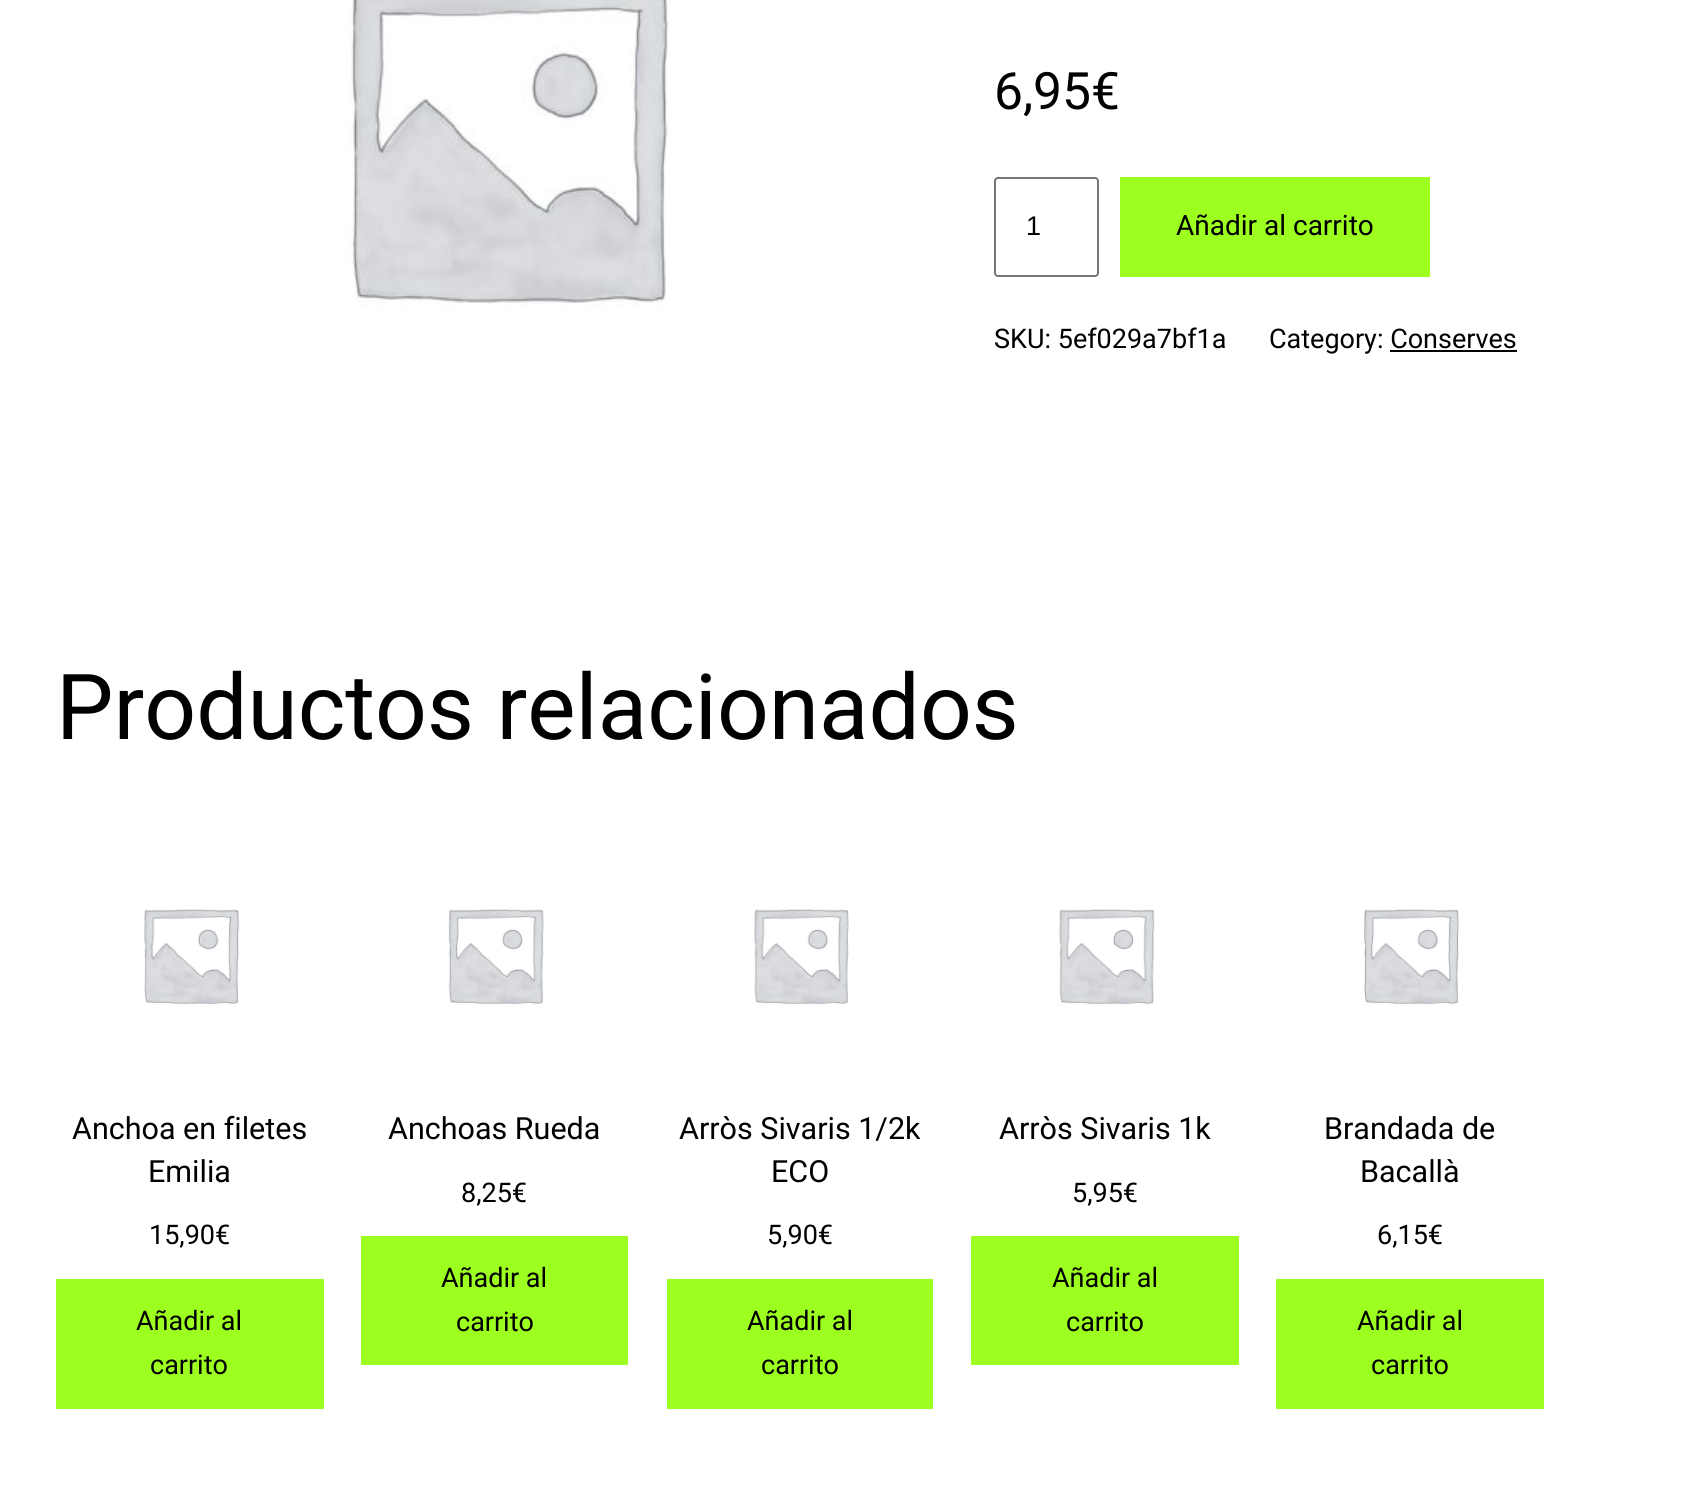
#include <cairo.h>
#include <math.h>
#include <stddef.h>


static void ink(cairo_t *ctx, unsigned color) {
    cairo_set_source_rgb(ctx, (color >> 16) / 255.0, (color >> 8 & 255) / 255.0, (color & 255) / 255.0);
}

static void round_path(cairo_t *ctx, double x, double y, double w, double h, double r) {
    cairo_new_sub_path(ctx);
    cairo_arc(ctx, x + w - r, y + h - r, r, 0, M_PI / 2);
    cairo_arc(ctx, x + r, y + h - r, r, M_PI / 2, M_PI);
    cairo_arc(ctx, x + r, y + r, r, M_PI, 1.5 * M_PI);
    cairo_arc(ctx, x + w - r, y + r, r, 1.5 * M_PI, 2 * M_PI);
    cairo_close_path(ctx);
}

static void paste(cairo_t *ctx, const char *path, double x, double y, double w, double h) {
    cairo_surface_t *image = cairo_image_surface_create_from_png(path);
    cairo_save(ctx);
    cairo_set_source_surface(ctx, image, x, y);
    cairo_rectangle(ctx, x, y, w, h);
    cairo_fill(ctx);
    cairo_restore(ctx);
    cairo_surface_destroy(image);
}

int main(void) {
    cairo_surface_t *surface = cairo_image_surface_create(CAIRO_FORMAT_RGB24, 1686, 1512);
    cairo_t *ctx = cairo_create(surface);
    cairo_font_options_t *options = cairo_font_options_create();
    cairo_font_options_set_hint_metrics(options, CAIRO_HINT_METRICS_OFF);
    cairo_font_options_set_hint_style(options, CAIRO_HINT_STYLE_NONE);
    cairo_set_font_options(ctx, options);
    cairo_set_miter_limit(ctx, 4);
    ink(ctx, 0xFFFFFF);
    cairo_paint(ctx);
    paste(ctx, "media/1.png", 347, 0, 324, 308);
    cairo_select_font_face(ctx, "Roboto", CAIRO_FONT_SLANT_NORMAL, CAIRO_FONT_WEIGHT_NORMAL);
    cairo_set_font_size(ctx, 51.5);
    ink(ctx, 0x000000);
    cairo_move_to(ctx, 994, 109);
    cairo_show_text(ctx, "6,95€");
    round_path(ctx, 995, 178, 103, 98, 3);
    ink(ctx, 0x767676);
    cairo_stroke(ctx);
    cairo_select_font_face(ctx, "Liberation Sans", CAIRO_FONT_SLANT_NORMAL, CAIRO_FONT_WEIGHT_NORMAL);
    cairo_set_font_size(ctx, 27);
    ink(ctx, 0x000000);
    cairo_move_to(ctx, 1026, 235);
    cairo_show_text(ctx, "1");
    ink(ctx, 0x9DFF20);
    cairo_rectangle(ctx, 1120, 177, 310, 100);
    cairo_fill(ctx);
    cairo_select_font_face(ctx, "Roboto", CAIRO_FONT_SLANT_NORMAL, CAIRO_FONT_WEIGHT_NORMAL);
    cairo_set_font_size(ctx, 28);
    ink(ctx, 0x000000);
    cairo_move_to(ctx, 1176, 235);
    cairo_show_text(ctx, "Añadir al carrito");
    cairo_set_font_size(ctx, 27);
    cairo_move_to(ctx, 994, 348);
    cairo_show_text(ctx, "SKU: 5ef029a7bf1a");
    cairo_move_to(ctx, 1269, 348);
    cairo_show_text(ctx, "Category: Conserves");
    cairo_rectangle(ctx, 1390, 350, 127, 2);
    cairo_fill(ctx);
    cairo_set_font_size(ctx, 91);
    cairo_move_to(ctx, 56, 739);
    cairo_show_text(ctx, "Productos relacionados");
    paste(ctx, "media/2.png", 144, 909, 95, 96);
    cairo_set_font_size(ctx, 30.5);
    cairo_move_to(ctx, 72, 1139);
    cairo_show_text(ctx, "Anchoa en filetes");
    cairo_move_to(ctx, 148, 1182);
    cairo_show_text(ctx, "Emilia");
    cairo_set_font_size(ctx, 27);
    cairo_move_to(ctx, 149, 1244);
    cairo_show_text(ctx, "15,90€");
    ink(ctx, 0x9DFF20);
    cairo_rectangle(ctx, 56, 1279, 268, 130);
    cairo_fill(ctx);
    ink(ctx, 0x000000);
    cairo_move_to(ctx, 136, 1330);
    cairo_show_text(ctx, "Añadir al");
    cairo_move_to(ctx, 150, 1374);
    cairo_show_text(ctx, "carrito");
    paste(ctx, "media/3.png", 448, 909, 96, 96);
    cairo_set_font_size(ctx, 30.5);
    cairo_move_to(ctx, 388, 1139);
    cairo_show_text(ctx, "Anchoas Rueda");
    cairo_set_font_size(ctx, 27);
    cairo_move_to(ctx, 461, 1202);
    cairo_show_text(ctx, "8,25€");
    ink(ctx, 0x9DFF20);
    cairo_rectangle(ctx, 361, 1236, 267, 129);
    cairo_fill(ctx);
    ink(ctx, 0x000000);
    cairo_move_to(ctx, 441, 1287);
    cairo_show_text(ctx, "Añadir al");
    cairo_move_to(ctx, 456, 1331);
    cairo_show_text(ctx, "carrito");
    paste(ctx, "media/4.png", 754, 909, 95, 96);
    cairo_set_font_size(ctx, 30.5);
    cairo_move_to(ctx, 679, 1139);
    cairo_show_text(ctx, "Arròs Sivaris 1/2k");
    cairo_move_to(ctx, 771, 1182);
    cairo_show_text(ctx, "ECO");
    cairo_set_font_size(ctx, 27);
    cairo_move_to(ctx, 767, 1244);
    cairo_show_text(ctx, "5,90€");
    ink(ctx, 0x9DFF20);
    cairo_rectangle(ctx, 667, 1279, 266, 130);
    cairo_fill(ctx);
    ink(ctx, 0x000000);
    cairo_move_to(ctx, 747, 1330);
    cairo_show_text(ctx, "Añadir al");
    cairo_move_to(ctx, 761, 1374);
    cairo_show_text(ctx, "carrito");
    paste(ctx, "media/5.png", 1059, 909, 96, 96);
    cairo_set_font_size(ctx, 30.5);
    cairo_move_to(ctx, 999, 1139);
    cairo_show_text(ctx, "Arròs Sivaris 1k");
    cairo_set_font_size(ctx, 27);
    cairo_move_to(ctx, 1072, 1202);
    cairo_show_text(ctx, "5,95€");
    ink(ctx, 0x9DFF20);
    cairo_rectangle(ctx, 971, 1236, 268, 129);
    cairo_fill(ctx);
    ink(ctx, 0x000000);
    cairo_move_to(ctx, 1052, 1287);
    cairo_show_text(ctx, "Añadir al");
    cairo_move_to(ctx, 1066, 1331);
    cairo_show_text(ctx, "carrito");
    paste(ctx, "media/6.png", 1364, 909, 95, 96);
    cairo_set_font_size(ctx, 30.5);
    cairo_move_to(ctx, 1324, 1139);
    cairo_show_text(ctx, "Brandada de");
    cairo_move_to(ctx, 1360, 1182);
    cairo_show_text(ctx, "Bacallà");
    cairo_set_font_size(ctx, 27);
    cairo_move_to(ctx, 1377, 1244);
    cairo_show_text(ctx, "6,15€");
    ink(ctx, 0x9DFF20);
    cairo_rectangle(ctx, 1276, 1279, 268, 130);
    cairo_fill(ctx);
    ink(ctx, 0x000000);
    cairo_move_to(ctx, 1357, 1330);
    cairo_show_text(ctx, "Añadir al");
    cairo_move_to(ctx, 1371, 1374);
    cairo_show_text(ctx, "carrito");
    cairo_surface_write_to_png(surface, "image.png");
    cairo_font_options_destroy(options);
    cairo_destroy(ctx);
    cairo_surface_destroy(surface);
    return 0;
}
